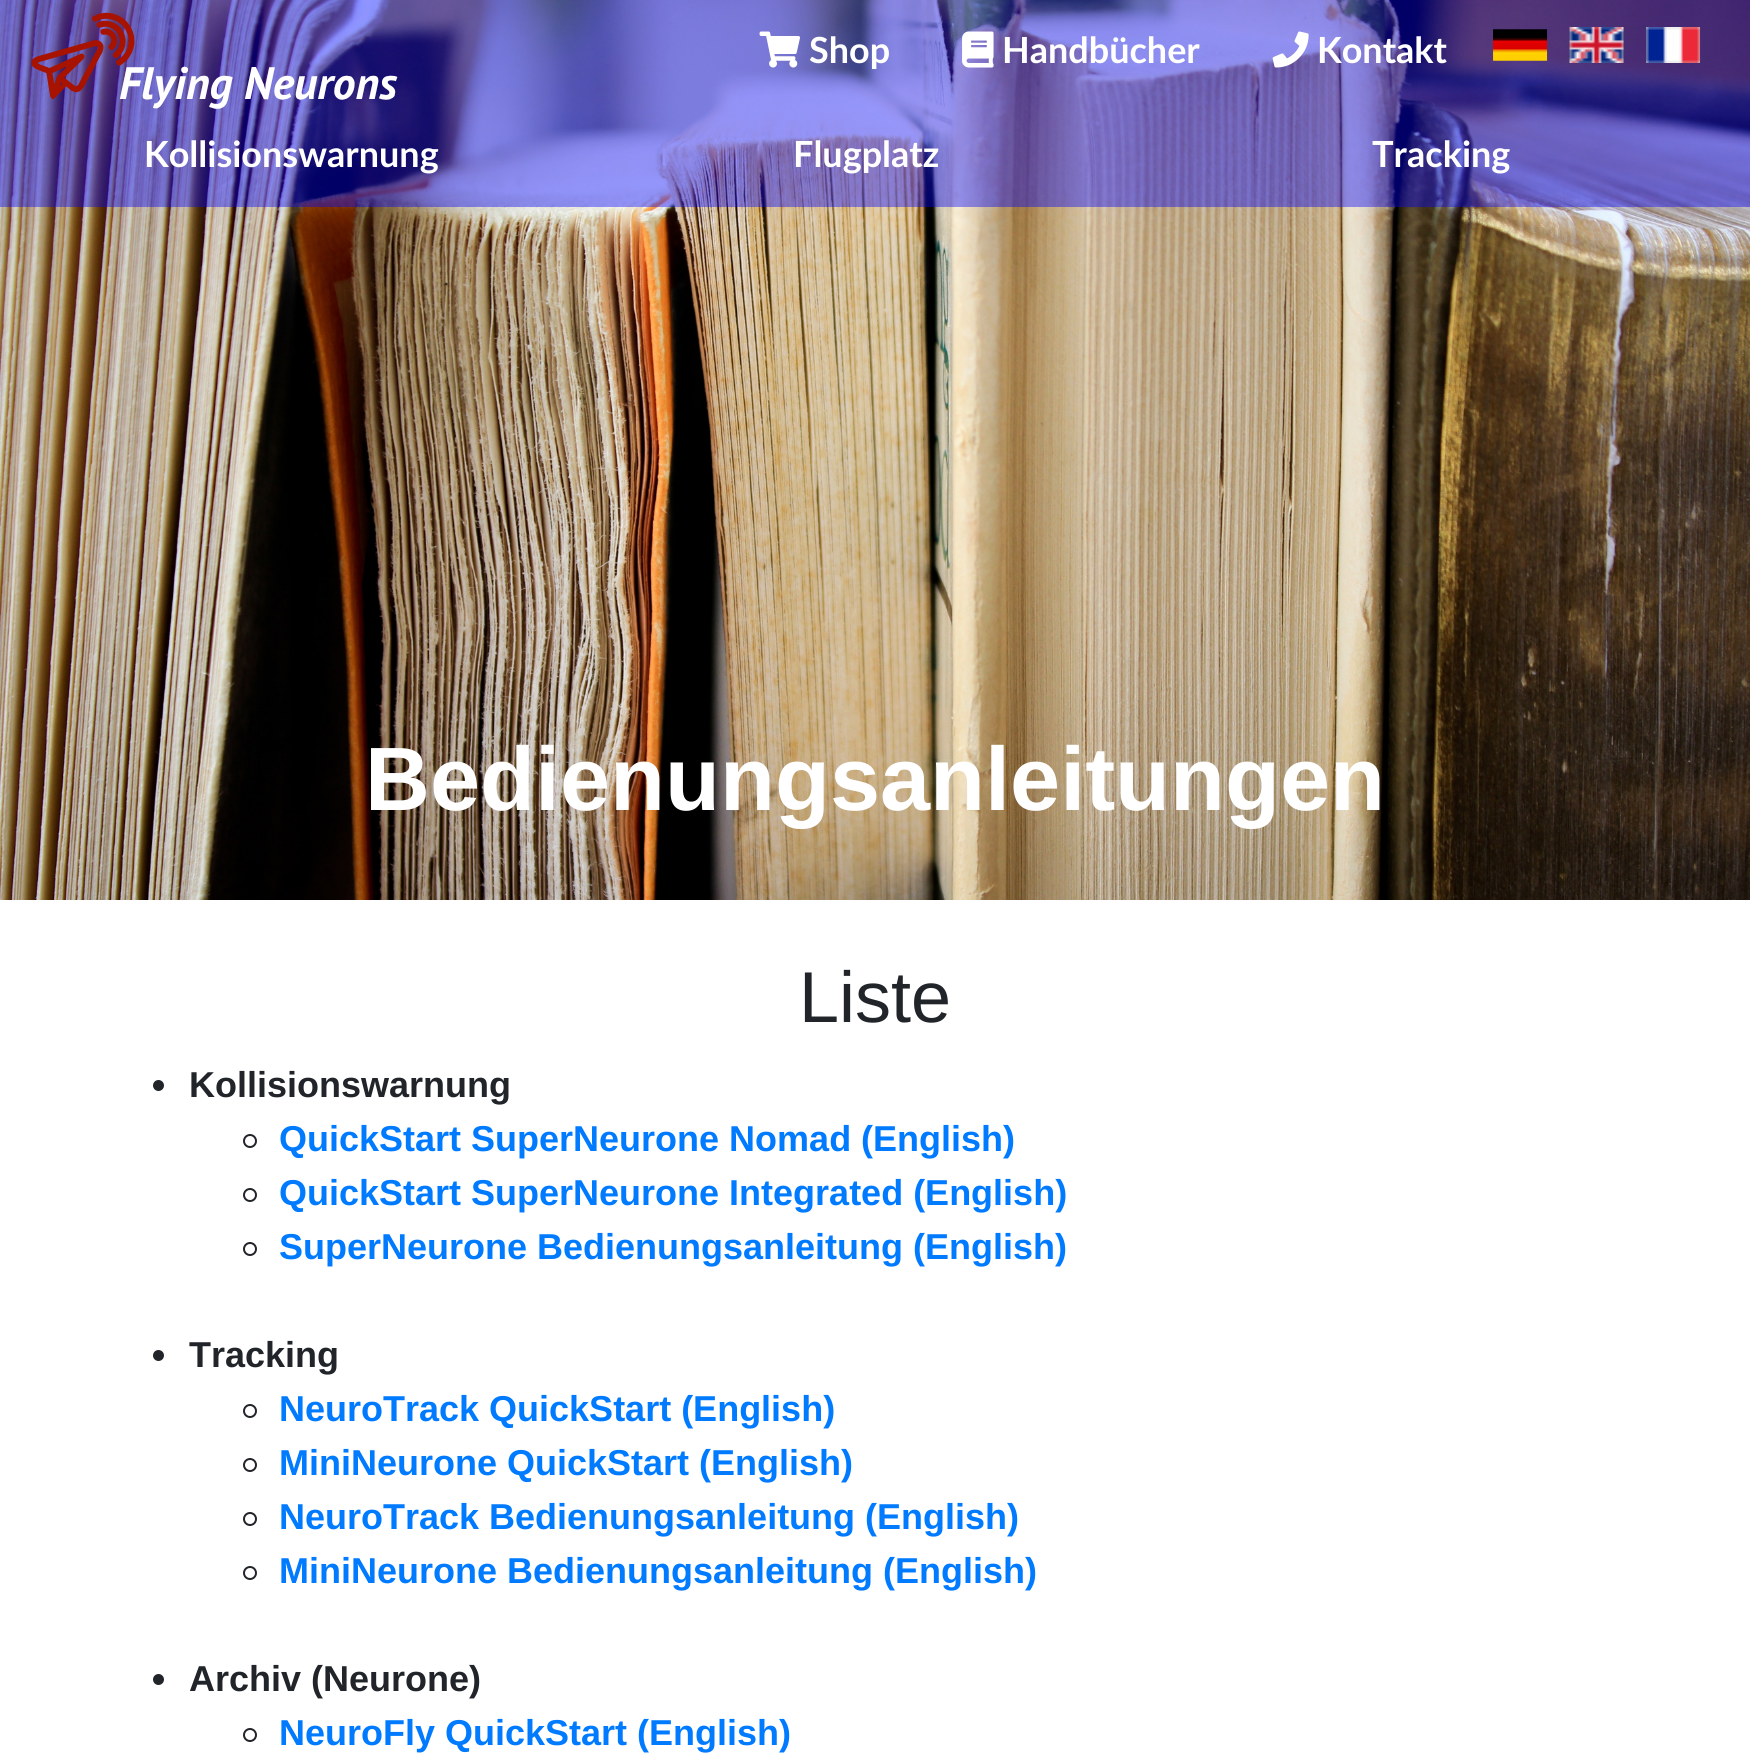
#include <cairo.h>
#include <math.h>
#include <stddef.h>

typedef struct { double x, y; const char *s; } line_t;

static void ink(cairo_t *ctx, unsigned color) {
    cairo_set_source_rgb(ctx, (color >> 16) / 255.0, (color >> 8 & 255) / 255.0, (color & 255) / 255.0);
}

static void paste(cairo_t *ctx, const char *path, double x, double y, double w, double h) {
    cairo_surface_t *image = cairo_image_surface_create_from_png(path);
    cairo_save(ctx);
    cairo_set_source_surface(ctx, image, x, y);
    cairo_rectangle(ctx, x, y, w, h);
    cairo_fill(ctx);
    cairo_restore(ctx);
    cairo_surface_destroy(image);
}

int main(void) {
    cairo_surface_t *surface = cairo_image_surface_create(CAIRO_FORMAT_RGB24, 1750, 1759);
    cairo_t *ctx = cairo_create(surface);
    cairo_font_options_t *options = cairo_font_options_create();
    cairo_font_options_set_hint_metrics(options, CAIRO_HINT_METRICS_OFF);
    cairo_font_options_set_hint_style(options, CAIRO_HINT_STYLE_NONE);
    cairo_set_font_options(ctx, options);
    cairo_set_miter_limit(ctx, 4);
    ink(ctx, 0xFFFFFF);
    cairo_paint(ctx);
    paste(ctx, "media/8.png", 0, 0, 1750, 900);
    cairo_set_source_rgba(ctx, 0, 0, 1, 0.4);
    cairo_rectangle(ctx, 0, 0, 1750, 207);
    cairo_fill(ctx);
    paste(ctx, "media/1.png", 31, 12, 367, 97);
    paste(ctx, "media/2.png", 759, 31, 41, 37);
    cairo_select_font_face(ctx, "Lato", CAIRO_FONT_SLANT_NORMAL, CAIRO_FONT_WEIGHT_BOLD);
    cairo_set_font_size(ctx, 36);
    ink(ctx, 0xFFFFFF);
    cairo_move_to(ctx, 809, 63);
    cairo_show_text(ctx, "Shop");
    paste(ctx, "media/3.png", 962, 31, 32, 37);
    cairo_move_to(ctx, 1002, 63);
    cairo_show_text(ctx, "Handbücher");
    paste(ctx, "media/4.png", 1272, 31, 37, 37);
    cairo_move_to(ctx, 1317, 63);
    cairo_show_text(ctx, "Kontakt");
    paste(ctx, "media/5.png", 1493, 29, 55, 32);
    paste(ctx, "media/6.png", 1569, 27, 55, 36);
    paste(ctx, "media/7.png", 1646, 27, 55, 36);
    {
        static const line_t items[] = {
            {144, 167, "Kollisionswarnung"},
            {793, 167, "Flugplatz"},
            {1372, 167, "Tracking"},
        };
        for (size_t i = 0; i < sizeof items / sizeof *items; i++) {
            cairo_move_to(ctx, items[i].x, items[i].y);
            cairo_show_text(ctx, items[i].s);
        }
    }
    cairo_select_font_face(ctx, "Liberation Sans", CAIRO_FONT_SLANT_NORMAL, CAIRO_FONT_WEIGHT_BOLD);
    cairo_set_font_size(ctx, 90);
    cairo_move_to(ctx, 365, 810);
    cairo_show_text(ctx, "Bedienungsanleitungen");
    cairo_select_font_face(ctx, "Liberation Sans", CAIRO_FONT_SLANT_NORMAL, CAIRO_FONT_WEIGHT_NORMAL);
    cairo_set_font_size(ctx, 72);
    ink(ctx, 0x212529);
    cairo_move_to(ctx, 799, 1022);
    cairo_show_text(ctx, "Liste");
    cairo_new_path(ctx);
    cairo_arc(ctx, 158.5, 1085.5, 5.5, 0, 2 * M_PI);
    cairo_fill(ctx);
    cairo_select_font_face(ctx, "Liberation Sans", CAIRO_FONT_SLANT_NORMAL, CAIRO_FONT_WEIGHT_BOLD);
    cairo_set_font_size(ctx, 36);
    cairo_move_to(ctx, 189, 1097);
    cairo_show_text(ctx, "Kollisionswarnung");
    cairo_new_path(ctx);
    cairo_arc(ctx, 250, 1141, 6, 0, 2 * M_PI);
    cairo_stroke(ctx);
    ink(ctx, 0x007BFF);
    cairo_move_to(ctx, 279, 1151);
    cairo_show_text(ctx, "QuickStart SuperNeurone Nomad (English)");
    cairo_new_path(ctx);
    cairo_arc(ctx, 250, 1195, 6, 0, 2 * M_PI);
    ink(ctx, 0x212529);
    cairo_stroke(ctx);
    ink(ctx, 0x007BFF);
    cairo_move_to(ctx, 279, 1205);
    cairo_show_text(ctx, "QuickStart SuperNeurone Integrated (English)");
    cairo_new_path(ctx);
    cairo_arc(ctx, 250, 1249, 6, 0, 2 * M_PI);
    ink(ctx, 0x212529);
    cairo_stroke(ctx);
    ink(ctx, 0x007BFF);
    cairo_move_to(ctx, 279, 1259);
    cairo_show_text(ctx, "SuperNeurone Bedienungsanleitung (English)");
    ink(ctx, 0x212529);
    cairo_new_path(ctx);
    cairo_arc(ctx, 158.5, 1355.5, 5.5, 0, 2 * M_PI);
    cairo_fill(ctx);
    cairo_move_to(ctx, 189, 1367);
    cairo_show_text(ctx, "Tracking");
    cairo_new_path(ctx);
    cairo_arc(ctx, 250, 1411, 6, 0, 2 * M_PI);
    cairo_stroke(ctx);
    ink(ctx, 0x007BFF);
    cairo_move_to(ctx, 279, 1421);
    cairo_show_text(ctx, "NeuroTrack QuickStart (English)");
    cairo_new_path(ctx);
    cairo_arc(ctx, 250, 1465, 6, 0, 2 * M_PI);
    ink(ctx, 0x212529);
    cairo_stroke(ctx);
    ink(ctx, 0x007BFF);
    cairo_move_to(ctx, 279, 1475);
    cairo_show_text(ctx, "MiniNeurone QuickStart (English)");
    cairo_new_path(ctx);
    cairo_arc(ctx, 250, 1519, 6, 0, 2 * M_PI);
    ink(ctx, 0x212529);
    cairo_stroke(ctx);
    ink(ctx, 0x007BFF);
    cairo_move_to(ctx, 279, 1529);
    cairo_show_text(ctx, "NeuroTrack Bedienungsanleitung (English)");
    cairo_new_path(ctx);
    cairo_arc(ctx, 250, 1573, 6, 0, 2 * M_PI);
    ink(ctx, 0x212529);
    cairo_stroke(ctx);
    ink(ctx, 0x007BFF);
    cairo_move_to(ctx, 279, 1583);
    cairo_show_text(ctx, "MiniNeurone Bedienungsanleitung (English)");
    ink(ctx, 0x212529);
    cairo_new_path(ctx);
    cairo_arc(ctx, 158.5, 1679.5, 5.5, 0, 2 * M_PI);
    cairo_fill(ctx);
    cairo_move_to(ctx, 189, 1691);
    cairo_show_text(ctx, "Archiv (Neurone)");
    cairo_new_path(ctx);
    cairo_arc(ctx, 250, 1735, 6, 0, 2 * M_PI);
    cairo_stroke(ctx);
    ink(ctx, 0x007BFF);
    cairo_move_to(ctx, 279, 1745);
    cairo_show_text(ctx, "NeuroFly QuickStart (English)");
    cairo_surface_write_to_png(surface, "image.png");
    cairo_font_options_destroy(options);
    cairo_destroy(ctx);
    cairo_surface_destroy(surface);
    return 0;
}
